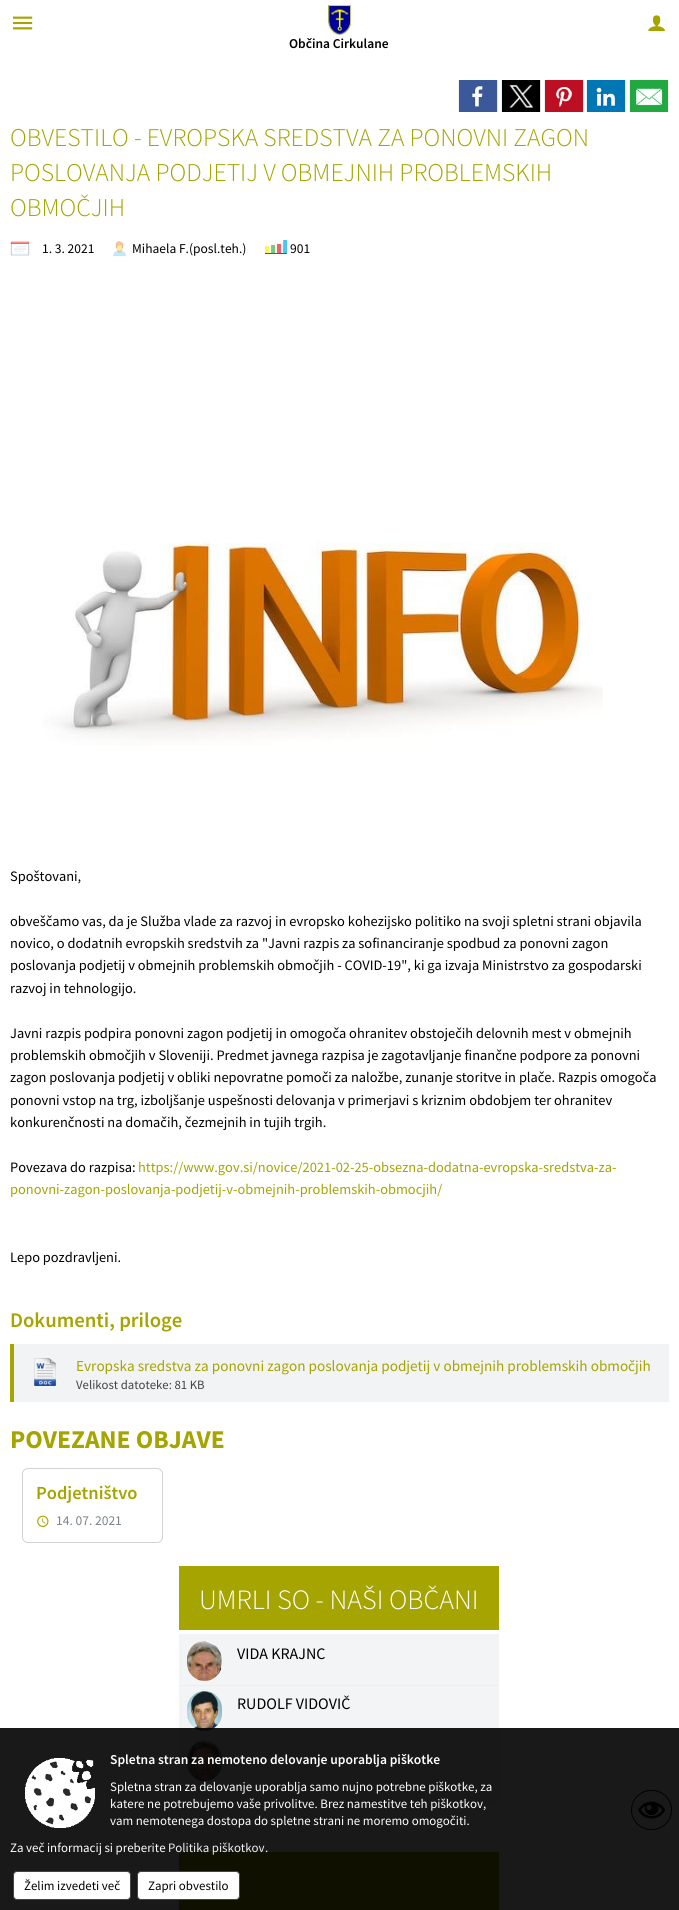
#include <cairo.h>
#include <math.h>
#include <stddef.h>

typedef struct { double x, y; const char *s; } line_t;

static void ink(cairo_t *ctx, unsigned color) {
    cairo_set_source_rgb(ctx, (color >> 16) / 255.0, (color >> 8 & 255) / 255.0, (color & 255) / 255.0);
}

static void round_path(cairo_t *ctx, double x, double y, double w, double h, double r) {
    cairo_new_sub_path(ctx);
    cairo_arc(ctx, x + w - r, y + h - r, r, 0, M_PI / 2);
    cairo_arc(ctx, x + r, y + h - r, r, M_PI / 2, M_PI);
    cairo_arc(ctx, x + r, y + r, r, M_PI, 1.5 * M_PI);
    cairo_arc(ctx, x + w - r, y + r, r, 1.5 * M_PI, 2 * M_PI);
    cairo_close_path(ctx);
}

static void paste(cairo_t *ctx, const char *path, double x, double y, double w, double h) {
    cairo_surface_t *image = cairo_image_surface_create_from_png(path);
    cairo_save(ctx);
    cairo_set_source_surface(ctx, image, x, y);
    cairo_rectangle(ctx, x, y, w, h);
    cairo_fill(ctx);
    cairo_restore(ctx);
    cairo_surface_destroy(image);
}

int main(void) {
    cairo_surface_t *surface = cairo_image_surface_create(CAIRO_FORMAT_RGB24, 679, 1910);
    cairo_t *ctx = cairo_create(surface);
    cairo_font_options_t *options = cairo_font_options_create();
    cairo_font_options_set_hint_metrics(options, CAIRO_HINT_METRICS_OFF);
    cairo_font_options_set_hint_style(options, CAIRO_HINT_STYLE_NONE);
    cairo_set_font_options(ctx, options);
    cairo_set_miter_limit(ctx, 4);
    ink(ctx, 0xFFFFFF);
    cairo_paint(ctx);
    paste(ctx, "media/1.png", 13, 16, 20, 14);
    paste(ctx, "media/2.png", 648, 15, 17, 16);
    paste(ctx, "media/3.png", 328, 5, 24, 30);
    cairo_select_font_face(ctx, "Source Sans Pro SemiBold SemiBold", CAIRO_FONT_SLANT_NORMAL, CAIRO_FONT_WEIGHT_NORMAL);
    cairo_set_font_size(ctx, 13.5);
    ink(ctx, 0x000000);
    cairo_move_to(ctx, 289, 48);
    cairo_show_text(ctx, "Občina Cirkulane");
    ink(ctx, 0xEFEFEF);
    cairo_rectangle(ctx, 458, 80, 40, 32);
    cairo_fill(ctx);
    paste(ctx, "media/4.png", 459, 80, 39, 32);
    cairo_rectangle(ctx, 501, 80, 40, 32);
    cairo_fill(ctx);
    paste(ctx, "media/5.png", 502, 80, 39, 32);
    cairo_rectangle(ctx, 544, 80, 40, 32);
    cairo_fill(ctx);
    paste(ctx, "media/6.png", 545, 80, 38, 32);
    cairo_rectangle(ctx, 586, 80, 40, 32);
    cairo_fill(ctx);
    paste(ctx, "media/7.png", 587, 80, 38, 32);
    cairo_rectangle(ctx, 629, 80, 40, 32);
    cairo_fill(ctx);
    paste(ctx, "media/8.png", 630, 80, 38, 32);
    cairo_select_font_face(ctx, "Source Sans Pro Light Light", CAIRO_FONT_SLANT_NORMAL, CAIRO_FONT_WEIGHT_NORMAL);
    cairo_set_font_size(ctx, 25.6);
    ink(ctx, 0xA5A400);
    {
        static const line_t items[] = {
            {10, 146, "OBVESTILO - EVROPSKA SREDSTVA ZA PONOVNI ZAGON"},
            {10, 181, "POSLOVANJA PODJETIJ V OBMEJNIH PROBLEMSKIH"},
            {10, 216, "OBMOČJIH"},
        };
        for (size_t i = 0; i < sizeof items / sizeof *items; i++) {
            cairo_move_to(ctx, items[i].x, items[i].y);
            cairo_show_text(ctx, items[i].s);
        }
    }
    paste(ctx, "media/9.png", 10, 241, 20, 15);
    cairo_select_font_face(ctx, "Source Sans Pro", CAIRO_FONT_SLANT_NORMAL, CAIRO_FONT_WEIGHT_NORMAL);
    cairo_set_font_size(ctx, 13.5);
    ink(ctx, 0x000000);
    cairo_move_to(ctx, 42, 253);
    cairo_show_text(ctx, "1. 3. 2021");
    paste(ctx, "media/10.png", 113, 241, 13, 15);
    cairo_move_to(ctx, 132, 253);
    cairo_show_text(ctx, "Mihaela F.(posl.teh.)");
    paste(ctx, "media/11.png", 265, 240, 22, 14);
    cairo_move_to(ctx, 290, 253);
    cairo_show_text(ctx, "901");
    paste(ctx, "media/12.png", 43, 541, 560, 205);
    cairo_set_font_size(ctx, 14.4);
    {
        static const line_t items[] = {
            {10, 881, "Spoštovani,"},
            {10, 926, "obveščamo vas, da je Služba vlade za razvoj in evropsko kohezijsko politiko na svoji spletni strani objavila"},
            {10, 948, "novico, o dodatnih evropskih sredstvih za \"Javni razpis za sofinanciranje spodbud za ponovni zagon"},
            {10, 970, "poslovanja podjetij v obmejnih problemskih območjih - COVID-19\", ki ga izvaja Ministrstvo za gospodarski"},
            {10, 993, "razvoj in tehnologijo."},
            {10, 1038, "Javni razpis podpira ponovni zagon podjetij in omogoča ohranitev obstoječih delovnih mest v obmejnih"},
            {10, 1060, "problemskih območjih v Sloveniji. Predmet javnega razpisa je zagotavljanje finančne podpore za ponovni"},
            {10, 1082, "zagon poslovanja podjetij v obliki nepovratne pomoči za naložbe, zunanje storitve in plače. Razpis omogoča"},
            {10, 1105, "ponovni vstop na trg, izboljšanje uspešnosti delovanja v primerjavi s kriznim obdobjem ter ohranitev"},
            {10, 1127, "konkurenčnosti na domačih, čezmejnih in tujih trgih."},
            {10, 1172, "Povezava do razpisa:"},
        };
        for (size_t i = 0; i < sizeof items / sizeof *items; i++) {
            cairo_move_to(ctx, items[i].x, items[i].y);
            cairo_show_text(ctx, items[i].s);
        }
    }
    ink(ctx, 0xA5A400);
    cairo_move_to(ctx, 138, 1172);
    cairo_show_text(ctx, "https://www.gov.si/novice/2021-02-25-obsezna-dodatna-evropska-sredstva-za-");
    cairo_move_to(ctx, 10, 1194);
    cairo_show_text(ctx, "ponovni-zagon-poslovanja-podjetij-v-obmejnih-problemskih-obmocjih/");
    ink(ctx, 0x000000);
    cairo_move_to(ctx, 10, 1262);
    cairo_show_text(ctx, "Lepo pozdravljeni.");
    cairo_select_font_face(ctx, "Source Sans Pro SemiBold SemiBold", CAIRO_FONT_SLANT_NORMAL, CAIRO_FONT_WEIGHT_NORMAL);
    cairo_set_font_size(ctx, 20.75);
    ink(ctx, 0xA5A400);
    cairo_move_to(ctx, 10, 1327);
    cairo_show_text(ctx, "Dokumenti, priloge");
    ink(ctx, 0xF2F3F5);
    cairo_rectangle(ctx, 14, 1344, 655, 58);
    cairo_fill(ctx);
    ink(ctx, 0xA5A400);
    cairo_rectangle(ctx, 10, 1344, 4, 58);
    cairo_fill(ctx);
    paste(ctx, "media/13.png", 34, 1358, 22, 28);
    cairo_select_font_face(ctx, "Source Sans Pro", CAIRO_FONT_SLANT_NORMAL, CAIRO_FONT_WEIGHT_NORMAL);
    cairo_set_font_size(ctx, 15.2);
    cairo_move_to(ctx, 76, 1371);
    cairo_show_text(ctx, "Evropska sredstva za ponovni zagon poslovanja podjetij v obmejnih problemskih območjih");
    cairo_set_font_size(ctx, 12.75);
    ink(ctx, 0x444444);
    cairo_move_to(ctx, 76, 1389);
    cairo_show_text(ctx, "Velikost datoteke: 81 KB");
    cairo_select_font_face(ctx, "Source Sans Pro", CAIRO_FONT_SLANT_NORMAL, CAIRO_FONT_WEIGHT_BOLD);
    cairo_set_font_size(ctx, 25.6);
    ink(ctx, 0xA5A400);
    cairo_move_to(ctx, 10, 1448);
    cairo_show_text(ctx, "POVEZANE OBJAVE");
    round_path(ctx, 22.5, 1468.5, 140, 74, 5.5);
    ink(ctx, 0xD2D2D2);
    cairo_set_line_width(ctx, 1);
    cairo_stroke(ctx);
    cairo_select_font_face(ctx, "Source Sans Pro SemiBold SemiBold", CAIRO_FONT_SLANT_NORMAL, CAIRO_FONT_WEIGHT_NORMAL);
    cairo_set_font_size(ctx, 18.5);
    ink(ctx, 0xA5A400);
    cairo_move_to(ctx, 36, 1499);
    cairo_show_text(ctx, "Podjetništvo");
    paste(ctx, "media/14.png", 37, 1515, 12, 12);
    cairo_select_font_face(ctx, "Source Sans Pro", CAIRO_FONT_SLANT_NORMAL, CAIRO_FONT_WEIGHT_NORMAL);
    cairo_set_font_size(ctx, 13.5);
    ink(ctx, 0x798387);
    cairo_move_to(ctx, 56, 1525);
    cairo_show_text(ctx, "14. 07. 2021");
    ink(ctx, 0xA5A400);
    cairo_rectangle(ctx, 179, 1566, 320, 64);
    cairo_fill(ctx);
    cairo_select_font_face(ctx, "Source Sans Pro Light Light", CAIRO_FONT_SLANT_NORMAL, CAIRO_FONT_WEIGHT_NORMAL);
    cairo_set_font_size(ctx, 28);
    ink(ctx, 0xFFFFFF);
    cairo_move_to(ctx, 199, 1609);
    cairo_show_text(ctx, "UMRLI SO - NAŠI OBČANI");
    ink(ctx, 0xF3F4F5);
    cairo_rectangle(ctx, 179, 1634, 320, 168);
    cairo_fill(ctx);
    ink(ctx, 0xEEEEEE);
    cairo_rectangle(ctx, 179, 1685, 320, 1);
    cairo_fill(ctx);
    paste(ctx, "media/15.png", 187, 1641, 35, 40);
    cairo_select_font_face(ctx, "Source Sans Pro", CAIRO_FONT_SLANT_NORMAL, CAIRO_FONT_WEIGHT_NORMAL);
    cairo_set_font_size(ctx, 16);
    ink(ctx, 0x000000);
    cairo_move_to(ctx, 237, 1659);
    cairo_show_text(ctx, "VIDA KRAJNC");
    ink(ctx, 0xEEEEEE);
    cairo_rectangle(ctx, 179, 1735, 320, 1);
    cairo_fill(ctx);
    paste(ctx, "media/16.png", 187, 1691, 35, 40);
    ink(ctx, 0x000000);
    cairo_move_to(ctx, 237, 1709);
    cairo_show_text(ctx, "RUDOLF VIDOVIČ");
    ink(ctx, 0xEEEEEE);
    cairo_rectangle(ctx, 179, 1785, 320, 1);
    cairo_fill(ctx);
    paste(ctx, "media/17.png", 187, 1741, 35, 40);
    ink(ctx, 0xA5A400);
    cairo_rectangle(ctx, 179, 1852, 320, 58);
    cairo_fill(ctx);
    round_path(ctx, 631.5, 1790.5, 40, 39, 19.5);
    ink(ctx, 0x111111);
    cairo_stroke(ctx);
    paste(ctx, "media/19.png", 638, 1801, 28, 18);
    cairo_set_source_rgba(ctx, 0, 0, 0, 0.9);
    cairo_rectangle(ctx, 0, 1728, 679, 182);
    cairo_fill(ctx);
    cairo_select_font_face(ctx, "Source Sans Pro SemiBold SemiBold", CAIRO_FONT_SLANT_NORMAL, CAIRO_FONT_WEIGHT_NORMAL);
    cairo_set_font_size(ctx, 13.6);
    ink(ctx, 0xFFFFFF);
    cairo_move_to(ctx, 110, 1764);
    cairo_show_text(ctx, "Spletna stran za nemoteno delovanje uporablja piškotke");
    cairo_select_font_face(ctx, "Source Sans Pro", CAIRO_FONT_SLANT_NORMAL, CAIRO_FONT_WEIGHT_NORMAL);
    cairo_set_font_size(ctx, 12.9);
    {
        static const line_t items[] = {
            {110, 1791, "Spletna stran za delovanje uporablja samo nujno potrebne piškotke, za"},
            {110, 1808, "katere ne potrebujemo vaše privolitve. Brez namestitve teh piškotkov,"},
            {110, 1825, "vam nemotenega dostopa do spletne strani ne moremo omogočiti."},
            {10, 1852, "Za več informacij si preberite"},
        };
        for (size_t i = 0; i < sizeof items / sizeof *items; i++) {
            cairo_move_to(ctx, items[i].x, items[i].y);
            cairo_show_text(ctx, items[i].s);
        }
    }
    ink(ctx, 0xEEEEEE);
    cairo_move_to(ctx, 168, 1852);
    cairo_show_text(ctx, "Politika piškotkov");
    ink(ctx, 0xFFFFFF);
    cairo_move_to(ctx, 265, 1852);
    cairo_show_text(ctx, ".");
    paste(ctx, "media/18.png", 25, 1758, 70, 70);
    round_path(ctx, 13.5, 1871.5, 117, 28, 3.5);
    cairo_fill_preserve(ctx);
    ink(ctx, 0x444444);
    cairo_stroke(ctx);
    ink(ctx, 0x000000);
    cairo_move_to(ctx, 24, 1890);
    cairo_show_text(ctx, "Želim izvedeti več");
    ink(ctx, 0xFFFFFF);
    round_path(ctx, 137.5, 1871.5, 102, 28, 3.5);
    cairo_fill_preserve(ctx);
    ink(ctx, 0x444444);
    cairo_stroke(ctx);
    ink(ctx, 0x000000);
    cairo_move_to(ctx, 148, 1890);
    cairo_show_text(ctx, "Zapri obvestilo");
    cairo_surface_write_to_png(surface, "image.png");
    cairo_font_options_destroy(options);
    cairo_destroy(ctx);
    cairo_surface_destroy(surface);
    return 0;
}
